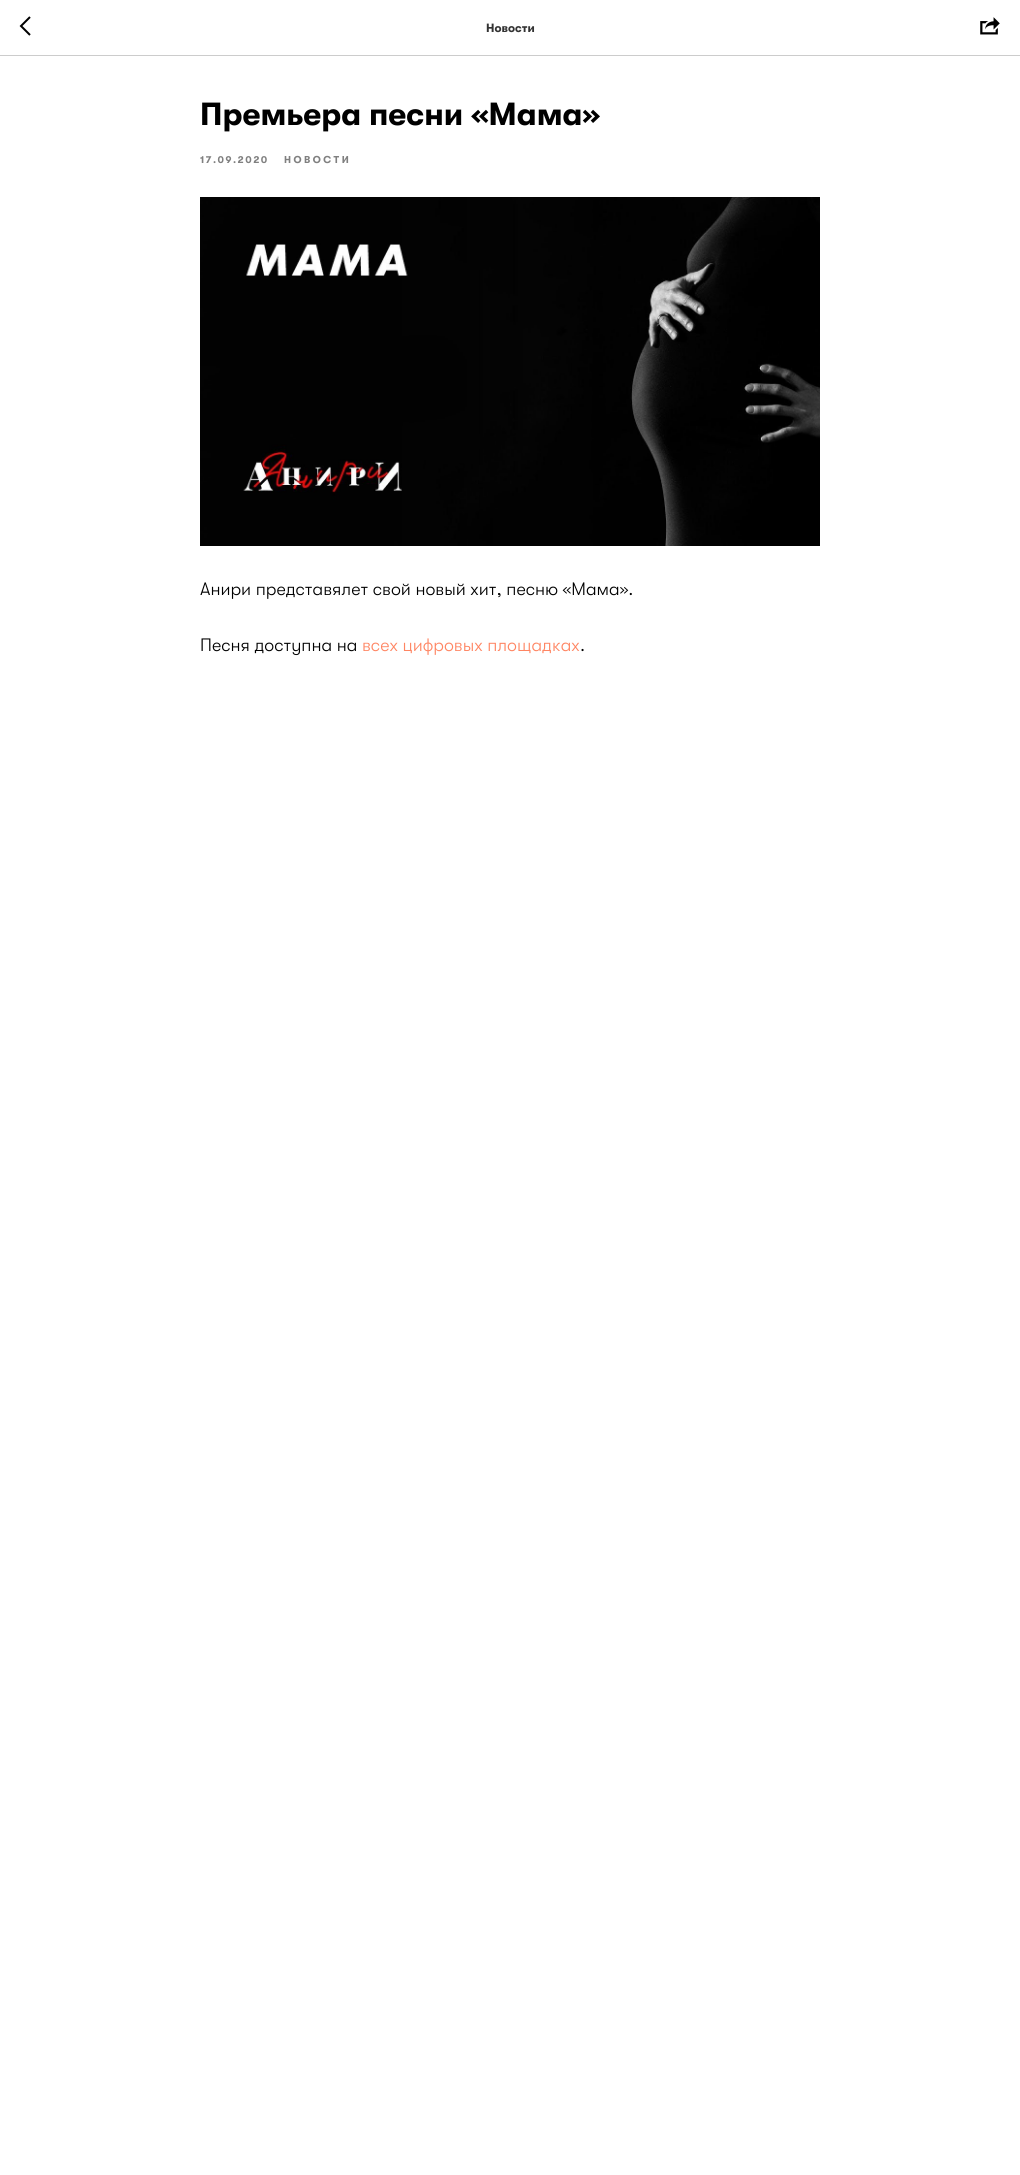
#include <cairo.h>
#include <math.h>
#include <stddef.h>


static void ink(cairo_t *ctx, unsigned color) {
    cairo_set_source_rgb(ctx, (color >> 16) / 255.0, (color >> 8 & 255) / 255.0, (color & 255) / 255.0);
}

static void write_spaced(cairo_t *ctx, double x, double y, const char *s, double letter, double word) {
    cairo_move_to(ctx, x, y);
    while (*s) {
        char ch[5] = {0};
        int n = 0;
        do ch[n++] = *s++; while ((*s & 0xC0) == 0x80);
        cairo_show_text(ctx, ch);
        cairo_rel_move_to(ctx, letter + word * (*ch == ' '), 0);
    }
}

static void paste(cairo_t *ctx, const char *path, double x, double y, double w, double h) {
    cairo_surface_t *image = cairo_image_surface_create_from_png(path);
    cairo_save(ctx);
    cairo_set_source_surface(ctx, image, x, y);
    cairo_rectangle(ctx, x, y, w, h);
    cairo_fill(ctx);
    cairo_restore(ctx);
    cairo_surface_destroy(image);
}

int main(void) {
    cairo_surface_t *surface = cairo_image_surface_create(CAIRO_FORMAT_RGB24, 1020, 2175);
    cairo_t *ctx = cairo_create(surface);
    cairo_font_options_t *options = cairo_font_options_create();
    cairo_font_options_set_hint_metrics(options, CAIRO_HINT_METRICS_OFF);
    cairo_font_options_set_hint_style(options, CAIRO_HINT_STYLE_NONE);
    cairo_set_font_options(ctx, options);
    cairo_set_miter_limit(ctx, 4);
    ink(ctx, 0xFFFFFF);
    cairo_paint(ctx);
    ink(ctx, 0xCCCCCC);
    cairo_rectangle(ctx, 0, 55, 1020, 1);
    cairo_fill(ctx);
    cairo_new_path(ctx);
    cairo_move_to(ctx, 30, 35);
    cairo_line_to(ctx, 21, 26);
    cairo_line_to(ctx, 30, 17);
    ink(ctx, 0x000000);
    cairo_stroke(ctx);
    cairo_select_font_face(ctx, "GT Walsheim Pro", CAIRO_FONT_SLANT_NORMAL, CAIRO_FONT_WEIGHT_BOLD);
    cairo_set_font_size(ctx, 12);
    ink(ctx, 0x333333);
    cairo_move_to(ctx, 486, 32);
    cairo_show_text(ctx, "Новости");
    paste(ctx, "media/1.png", 980, 17, 20, 18);
    cairo_set_font_size(ctx, 32);
    ink(ctx, 0x000000);
    cairo_move_to(ctx, 200, 125);
    cairo_show_text(ctx, "Премьера песни «Мама»");
    cairo_set_font_size(ctx, 10);
    ink(ctx, 0x808080);
    write_spaced(ctx, 200, 163, "17.09.2020", 1.5, 0);
    write_spaced(ctx, 284, 163, "НОВОСТИ", 2.5, 0);
    paste(ctx, "media/2.png", 200, 197, 620, 349);
    cairo_select_font_face(ctx, "GT Walsheim Pro Light", CAIRO_FONT_SLANT_NORMAL, CAIRO_FONT_WEIGHT_NORMAL);
    cairo_set_font_size(ctx, 18);
    ink(ctx, 0x000000);
    cairo_move_to(ctx, 200, 595);
    cairo_show_text(ctx, "Анири представялет свой новый хит, песню «Мама».");
    cairo_move_to(ctx, 200, 651);
    cairo_show_text(ctx, "Песня доступна на");
    ink(ctx, 0xFF8562);
    cairo_move_to(ctx, 362, 651);
    cairo_show_text(ctx, "всех цифровых площадках");
    ink(ctx, 0x000000);
    cairo_move_to(ctx, 580, 651);
    cairo_show_text(ctx, ".");
    cairo_surface_write_to_png(surface, "image.png");
    cairo_font_options_destroy(options);
    cairo_destroy(ctx);
    cairo_surface_destroy(surface);
    return 0;
}
